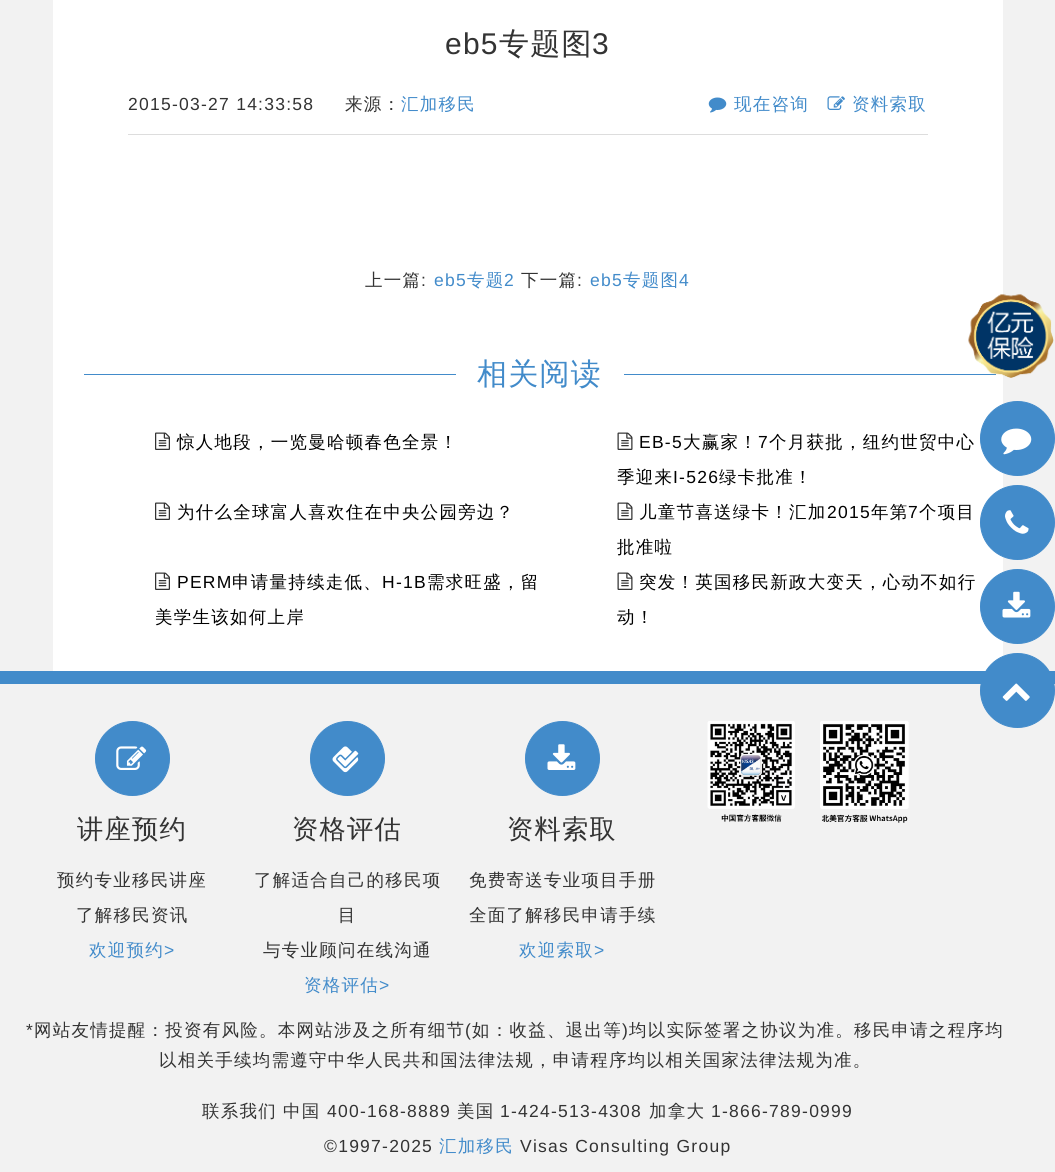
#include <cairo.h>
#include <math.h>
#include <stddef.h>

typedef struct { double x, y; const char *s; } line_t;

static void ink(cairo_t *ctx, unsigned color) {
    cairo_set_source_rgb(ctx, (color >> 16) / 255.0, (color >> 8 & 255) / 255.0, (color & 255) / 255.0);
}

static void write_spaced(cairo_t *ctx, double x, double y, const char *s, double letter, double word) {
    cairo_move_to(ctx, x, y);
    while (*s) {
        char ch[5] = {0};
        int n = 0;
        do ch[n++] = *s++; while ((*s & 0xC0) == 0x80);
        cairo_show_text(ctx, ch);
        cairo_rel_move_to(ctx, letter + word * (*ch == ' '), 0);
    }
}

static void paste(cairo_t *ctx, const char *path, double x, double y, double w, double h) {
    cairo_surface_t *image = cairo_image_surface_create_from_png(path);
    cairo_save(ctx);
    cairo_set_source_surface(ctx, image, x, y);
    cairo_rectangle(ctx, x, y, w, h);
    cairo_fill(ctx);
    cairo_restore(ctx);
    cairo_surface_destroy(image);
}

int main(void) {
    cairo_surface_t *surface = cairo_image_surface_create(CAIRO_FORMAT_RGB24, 1055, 1172);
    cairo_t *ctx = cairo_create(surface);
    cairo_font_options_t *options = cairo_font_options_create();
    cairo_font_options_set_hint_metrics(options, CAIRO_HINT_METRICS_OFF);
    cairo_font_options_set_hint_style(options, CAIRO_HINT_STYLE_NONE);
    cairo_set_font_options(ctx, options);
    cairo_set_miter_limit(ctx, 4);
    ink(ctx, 0xF2F2F2);
    cairo_paint(ctx);
    ink(ctx, 0xFFFFFF);
    cairo_rectangle(ctx, 53, 0, 950, 671);
    cairo_fill(ctx);
    cairo_select_font_face(ctx, "Liberation Sans", CAIRO_FONT_SLANT_NORMAL, CAIRO_FONT_WEIGHT_NORMAL);
    cairo_set_font_size(ctx, 30);
    ink(ctx, 0x333333);
    write_spaced(ctx, 445, 54, "eb5", 1.25, 0);
    cairo_select_font_face(ctx, "WenQuanYi Zen Hei Medium", CAIRO_FONT_SLANT_NORMAL, CAIRO_FONT_WEIGHT_NORMAL);
    write_spaced(ctx, 499, 54, "专题图", 1.25, 0);
    cairo_select_font_face(ctx, "Liberation Sans", CAIRO_FONT_SLANT_NORMAL, CAIRO_FONT_WEIGHT_NORMAL);
    write_spaced(ctx, 592, 54, "3", 1.25, 0);
    cairo_set_font_size(ctx, 17.5);
    write_spaced(ctx, 128, 110, "2015-03-27 14:33:58", 1.25, 0);
    cairo_select_font_face(ctx, "WenQuanYi Zen Hei Medium", CAIRO_FONT_SLANT_NORMAL, CAIRO_FONT_WEIGHT_NORMAL);
    write_spaced(ctx, 345, 110, "来源：", 1.25, 0);
    ink(ctx, 0x428BCA);
    write_spaced(ctx, 401, 110, "汇加移民", 1.25, 0);
    paste(ctx, "media/1.png", 708, 97, 19, 16);
    write_spaced(ctx, 734, 110, "现在咨询", 1.25, 0);
    paste(ctx, "media/2.png", 827, 96, 18, 14);
    write_spaced(ctx, 852, 110, "资料索取", 1.25, 0);
    ink(ctx, 0xDDDDDD);
    cairo_rectangle(ctx, 128, 134, 800, 1);
    cairo_fill(ctx);
    ink(ctx, 0x333333);
    write_spaced(ctx, 365, 286, "上一篇", 1.25, 0);
    cairo_select_font_face(ctx, "Liberation Sans", CAIRO_FONT_SLANT_NORMAL, CAIRO_FONT_WEIGHT_NORMAL);
    write_spaced(ctx, 421, 286, ":", 1.25, 0);
    ink(ctx, 0x428BCA);
    write_spaced(ctx, 434, 286, "eb5", 1.25, 0);
    cairo_select_font_face(ctx, "WenQuanYi Zen Hei Medium", CAIRO_FONT_SLANT_NORMAL, CAIRO_FONT_WEIGHT_NORMAL);
    write_spaced(ctx, 467, 286, "专题", 1.25, 0);
    cairo_select_font_face(ctx, "Liberation Sans", CAIRO_FONT_SLANT_NORMAL, CAIRO_FONT_WEIGHT_NORMAL);
    write_spaced(ctx, 504, 286, "2", 1.25, 0);
    cairo_select_font_face(ctx, "WenQuanYi Zen Hei Medium", CAIRO_FONT_SLANT_NORMAL, CAIRO_FONT_WEIGHT_NORMAL);
    ink(ctx, 0x333333);
    write_spaced(ctx, 521, 286, "下一篇", 1.25, 0);
    cairo_select_font_face(ctx, "Liberation Sans", CAIRO_FONT_SLANT_NORMAL, CAIRO_FONT_WEIGHT_NORMAL);
    write_spaced(ctx, 577, 286, ":", 1.25, 0);
    ink(ctx, 0x428BCA);
    write_spaced(ctx, 590, 286, "eb5", 1.25, 0);
    cairo_select_font_face(ctx, "WenQuanYi Zen Hei Medium", CAIRO_FONT_SLANT_NORMAL, CAIRO_FONT_WEIGHT_NORMAL);
    write_spaced(ctx, 623, 286, "专题图", 1.25, 0);
    cairo_select_font_face(ctx, "Liberation Sans", CAIRO_FONT_SLANT_NORMAL, CAIRO_FONT_WEIGHT_NORMAL);
    write_spaced(ctx, 679, 286, "4", 1.25, 0);
    cairo_rectangle(ctx, 84, 374, 372, 1);
    cairo_fill(ctx);
    cairo_select_font_face(ctx, "WenQuanYi Zen Hei Medium", CAIRO_FONT_SLANT_NORMAL, CAIRO_FONT_WEIGHT_NORMAL);
    cairo_set_font_size(ctx, 30);
    write_spaced(ctx, 477, 384, "相关阅读", 1.25, 0);
    cairo_rectangle(ctx, 624, 374, 372, 1);
    cairo_fill(ctx);
    paste(ctx, "media/3.png", 155, 432, 15, 18);
    cairo_set_font_size(ctx, 17.5);
    ink(ctx, 0x000000);
    write_spaced(ctx, 177, 448, "惊人地段，一览曼哈顿春色全景！", 1.25, 0);
    paste(ctx, "media/4.png", 617, 432, 16, 18);
    cairo_select_font_face(ctx, "Liberation Sans", CAIRO_FONT_SLANT_NORMAL, CAIRO_FONT_WEIGHT_NORMAL);
    write_spaced(ctx, 639, 448, "EB-5", 1.25, 0);
    cairo_select_font_face(ctx, "WenQuanYi Zen Hei Medium", CAIRO_FONT_SLANT_NORMAL, CAIRO_FONT_WEIGHT_NORMAL);
    write_spaced(ctx, 683, 448, "大赢家！", 1.25, 0);
    cairo_select_font_face(ctx, "Liberation Sans", CAIRO_FONT_SLANT_NORMAL, CAIRO_FONT_WEIGHT_NORMAL);
    write_spaced(ctx, 758, 448, "7", 1.25, 0);
    cairo_select_font_face(ctx, "WenQuanYi Zen Hei Medium", CAIRO_FONT_SLANT_NORMAL, CAIRO_FONT_WEIGHT_NORMAL);
    write_spaced(ctx, 769, 448, "个月获批，纽约世贸中心", 1.25, 0);
    write_spaced(ctx, 617, 483, "季迎来", 1.25, 0);
    cairo_select_font_face(ctx, "Liberation Sans", CAIRO_FONT_SLANT_NORMAL, CAIRO_FONT_WEIGHT_NORMAL);
    write_spaced(ctx, 673, 483, "I-526", 1.25, 0);
    cairo_select_font_face(ctx, "WenQuanYi Zen Hei Medium", CAIRO_FONT_SLANT_NORMAL, CAIRO_FONT_WEIGHT_NORMAL);
    write_spaced(ctx, 719, 483, "绿卡批准！", 1.25, 0);
    paste(ctx, "media/3.png", 155, 502, 15, 18);
    write_spaced(ctx, 177, 518, "为什么全球富人喜欢住在中央公园旁边？", 1.25, 0);
    paste(ctx, "media/4.png", 617, 502, 16, 18);
    write_spaced(ctx, 639, 518, "儿童节喜送绿卡！汇加", 1.25, 0);
    cairo_select_font_face(ctx, "Liberation Sans", CAIRO_FONT_SLANT_NORMAL, CAIRO_FONT_WEIGHT_NORMAL);
    write_spaced(ctx, 827, 518, "2015", 1.25, 0);
    cairo_select_font_face(ctx, "WenQuanYi Zen Hei Medium", CAIRO_FONT_SLANT_NORMAL, CAIRO_FONT_WEIGHT_NORMAL);
    write_spaced(ctx, 871, 518, "年第", 1.25, 0);
    cairo_select_font_face(ctx, "Liberation Sans", CAIRO_FONT_SLANT_NORMAL, CAIRO_FONT_WEIGHT_NORMAL);
    write_spaced(ctx, 908, 518, "7", 1.25, 0);
    cairo_select_font_face(ctx, "WenQuanYi Zen Hei Medium", CAIRO_FONT_SLANT_NORMAL, CAIRO_FONT_WEIGHT_NORMAL);
    write_spaced(ctx, 919, 518, "个项目", 1.25, 0);
    write_spaced(ctx, 617, 553, "批准啦", 1.25, 0);
    paste(ctx, "media/3.png", 155, 572, 15, 18);
    cairo_select_font_face(ctx, "Liberation Sans", CAIRO_FONT_SLANT_NORMAL, CAIRO_FONT_WEIGHT_NORMAL);
    write_spaced(ctx, 177, 588, "PERM", 1.25, 0);
    cairo_select_font_face(ctx, "WenQuanYi Zen Hei Medium", CAIRO_FONT_SLANT_NORMAL, CAIRO_FONT_WEIGHT_NORMAL);
    write_spaced(ctx, 232, 588, "申请量持续走低、", 1.25, 0);
    cairo_select_font_face(ctx, "Liberation Sans", CAIRO_FONT_SLANT_NORMAL, CAIRO_FONT_WEIGHT_NORMAL);
    write_spaced(ctx, 382, 588, "H-1B", 1.25, 0);
    cairo_select_font_face(ctx, "WenQuanYi Zen Hei Medium", CAIRO_FONT_SLANT_NORMAL, CAIRO_FONT_WEIGHT_NORMAL);
    write_spaced(ctx, 427, 588, "需求旺盛，留", 1.25, 0);
    write_spaced(ctx, 155, 623, "美学生该如何上岸", 1.25, 0);
    paste(ctx, "media/4.png", 617, 572, 16, 18);
    write_spaced(ctx, 639, 588, "突发！英国移民新政大变天，心动不如行", 1.25, 0);
    write_spaced(ctx, 617, 623, "动！", 1.25, 0);
    paste(ctx, "media/5.png", 968, 294, 86, 84);
    ink(ctx, 0x428BCA);
    cairo_arc(ctx, 1017.5, 438.5, 37, 0, 2 * M_PI);
    cairo_fill_preserve(ctx);
    cairo_set_line_width(ctx, 1);
    cairo_stroke(ctx);
    paste(ctx, "media/6.png", 1001, 428, 31, 27);
    cairo_arc(ctx, 1017.5, 522.5, 37, 0, 2 * M_PI);
    cairo_fill_preserve(ctx);
    cairo_stroke(ctx);
    paste(ctx, "media/7.png", 1005, 510, 24, 24);
    cairo_arc(ctx, 1017.5, 606.5, 37, 0, 2 * M_PI);
    cairo_fill_preserve(ctx);
    cairo_stroke(ctx);
    paste(ctx, "media/8.png", 1002, 591, 29, 27);
    cairo_rectangle(ctx, 0, 671, 1055, 13);
    cairo_fill(ctx);
    cairo_arc(ctx, 1017.5, 690.5, 37, 0, 2 * M_PI);
    cairo_fill_preserve(ctx);
    cairo_stroke(ctx);
    paste(ctx, "media/9.png", 1002, 683, 28, 18);
    paste(ctx, "media/10.png", 707, 721, 88, 101);
    paste(ctx, "media/11.png", 820, 721, 89, 102);
    cairo_arc(ctx, 132.5, 758.5, 37, 0, 2 * M_PI);
    cairo_fill_preserve(ctx);
    cairo_stroke(ctx);
    paste(ctx, "media/12.png", 116, 746, 31, 24);
    cairo_set_font_size(ctx, 26.25);
    ink(ctx, 0x333333);
    write_spaced(ctx, 77, 838, "讲座预约", 1.25, 0);
    cairo_set_font_size(ctx, 17.5);
    write_spaced(ctx, 57, 886, "预约专业移民讲座", 1.25, 0);
    write_spaced(ctx, 76, 921, "了解移民资讯", 1.25, 0);
    ink(ctx, 0x428BCA);
    write_spaced(ctx, 89, 956, "欢迎预约", 1.25, 0);
    cairo_select_font_face(ctx, "Liberation Sans", CAIRO_FONT_SLANT_NORMAL, CAIRO_FONT_WEIGHT_NORMAL);
    write_spaced(ctx, 164, 956, ">", 1.25, 0);
    cairo_new_path(ctx);
    cairo_arc(ctx, 347.5, 758.5, 37, 0, 2 * M_PI);
    cairo_fill_preserve(ctx);
    cairo_stroke(ctx);
    paste(ctx, "media/13.png", 332, 746, 27, 27);
    cairo_select_font_face(ctx, "WenQuanYi Zen Hei Medium", CAIRO_FONT_SLANT_NORMAL, CAIRO_FONT_WEIGHT_NORMAL);
    cairo_set_font_size(ctx, 26.25);
    ink(ctx, 0x333333);
    write_spaced(ctx, 292, 838, "资格评估", 1.25, 0);
    cairo_set_font_size(ctx, 17.5);
    {
        static const line_t items[] = {
            {254, 886, "了解适合自己的移民项"},
            {338, 921, "目"},
            {263, 956, "与专业顾问在线沟通"},
        };
        for (size_t i = 0; i < sizeof items / sizeof *items; i++) {
            write_spaced(ctx, items[i].x, items[i].y, items[i].s, 1.25, 0);
        }
    }
    ink(ctx, 0x428BCA);
    write_spaced(ctx, 304, 991, "资格评估", 1.25, 0);
    cairo_select_font_face(ctx, "Liberation Sans", CAIRO_FONT_SLANT_NORMAL, CAIRO_FONT_WEIGHT_NORMAL);
    write_spaced(ctx, 379, 991, ">", 1.25, 0);
    cairo_new_path(ctx);
    cairo_arc(ctx, 562.5, 758.5, 37, 0, 2 * M_PI);
    cairo_fill_preserve(ctx);
    cairo_stroke(ctx);
    paste(ctx, "media/14.png", 547, 744, 29, 26);
    cairo_select_font_face(ctx, "WenQuanYi Zen Hei Medium", CAIRO_FONT_SLANT_NORMAL, CAIRO_FONT_WEIGHT_NORMAL);
    cairo_set_font_size(ctx, 26.25);
    ink(ctx, 0x333333);
    write_spaced(ctx, 507, 838, "资料索取", 1.25, 0);
    cairo_set_font_size(ctx, 17.5);
    write_spaced(ctx, 469, 886, "免费寄送专业项目手册", 1.25, 0);
    write_spaced(ctx, 469, 921, "全面了解移民申请手续", 1.25, 0);
    ink(ctx, 0x428BCA);
    write_spaced(ctx, 519, 956, "欢迎索取", 1.25, 0);
    cairo_select_font_face(ctx, "Liberation Sans", CAIRO_FONT_SLANT_NORMAL, CAIRO_FONT_WEIGHT_NORMAL);
    write_spaced(ctx, 594, 956, ">", 1.25, 0);
    ink(ctx, 0x333333);
    write_spaced(ctx, 26, 1036, "*", 1.25, 0);
    cairo_select_font_face(ctx, "WenQuanYi Zen Hei Medium", CAIRO_FONT_SLANT_NORMAL, CAIRO_FONT_WEIGHT_NORMAL);
    write_spaced(ctx, 34, 1036, "网站友情提醒：投资有风险。本网站涉及之所有细节", 1.25, 0);
    cairo_select_font_face(ctx, "Liberation Sans", CAIRO_FONT_SLANT_NORMAL, CAIRO_FONT_WEIGHT_NORMAL);
    write_spaced(ctx, 465, 1036, "(", 1.25, 0);
    cairo_select_font_face(ctx, "WenQuanYi Zen Hei Medium", CAIRO_FONT_SLANT_NORMAL, CAIRO_FONT_WEIGHT_NORMAL);
    write_spaced(ctx, 472, 1036, "如：收益、退出等", 1.25, 0);
    cairo_select_font_face(ctx, "Liberation Sans", CAIRO_FONT_SLANT_NORMAL, CAIRO_FONT_WEIGHT_NORMAL);
    write_spaced(ctx, 622, 1036, ")", 1.25, 0);
    cairo_select_font_face(ctx, "WenQuanYi Zen Hei Medium", CAIRO_FONT_SLANT_NORMAL, CAIRO_FONT_WEIGHT_NORMAL);
    {
        static const line_t items[] = {
            {629, 1036, "均以实际签署之协议为准。移民申请之程序均"},
            {159, 1066, "以相关手续均需遵守中华人民共和国法律法规，申请程序均以相关国家法律法规为准。"},
            {202, 1117, "联系我们"},
            {283, 1117, "中国"},
        };
        for (size_t i = 0; i < sizeof items / sizeof *items; i++) {
            write_spaced(ctx, items[i].x, items[i].y, items[i].s, 1.25, 0);
        }
    }
    cairo_select_font_face(ctx, "Liberation Sans", CAIRO_FONT_SLANT_NORMAL, CAIRO_FONT_WEIGHT_NORMAL);
    write_spaced(ctx, 327, 1117, "400-168-8889", 1.25, 0);
    cairo_select_font_face(ctx, "WenQuanYi Zen Hei Medium", CAIRO_FONT_SLANT_NORMAL, CAIRO_FONT_WEIGHT_NORMAL);
    write_spaced(ctx, 457, 1117, "美国", 1.25, 0);
    cairo_select_font_face(ctx, "Liberation Sans", CAIRO_FONT_SLANT_NORMAL, CAIRO_FONT_WEIGHT_NORMAL);
    write_spaced(ctx, 500, 1117, "1-424-513-4308", 1.25, 0);
    cairo_select_font_face(ctx, "WenQuanYi Zen Hei Medium", CAIRO_FONT_SLANT_NORMAL, CAIRO_FONT_WEIGHT_NORMAL);
    write_spaced(ctx, 649, 1117, "加拿大", 1.25, 0);
    cairo_select_font_face(ctx, "Liberation Sans", CAIRO_FONT_SLANT_NORMAL, CAIRO_FONT_WEIGHT_NORMAL);
    write_spaced(ctx, 711, 1117, "1-866-789-0999", 1.25, 0);
    write_spaced(ctx, 324, 1152, "©1997-2025", 1.25, 0);
    cairo_select_font_face(ctx, "WenQuanYi Zen Hei Medium", CAIRO_FONT_SLANT_NORMAL, CAIRO_FONT_WEIGHT_NORMAL);
    ink(ctx, 0x428BCA);
    write_spaced(ctx, 439, 1152, "汇加移民", 1.25, 0);
    cairo_select_font_face(ctx, "Liberation Sans", CAIRO_FONT_SLANT_NORMAL, CAIRO_FONT_WEIGHT_NORMAL);
    ink(ctx, 0x333333);
    write_spaced(ctx, 520, 1152, "Visas Consulting Group", 1.25, 0);
    cairo_surface_write_to_png(surface, "image.png");
    cairo_font_options_destroy(options);
    cairo_destroy(ctx);
    cairo_surface_destroy(surface);
    return 0;
}
